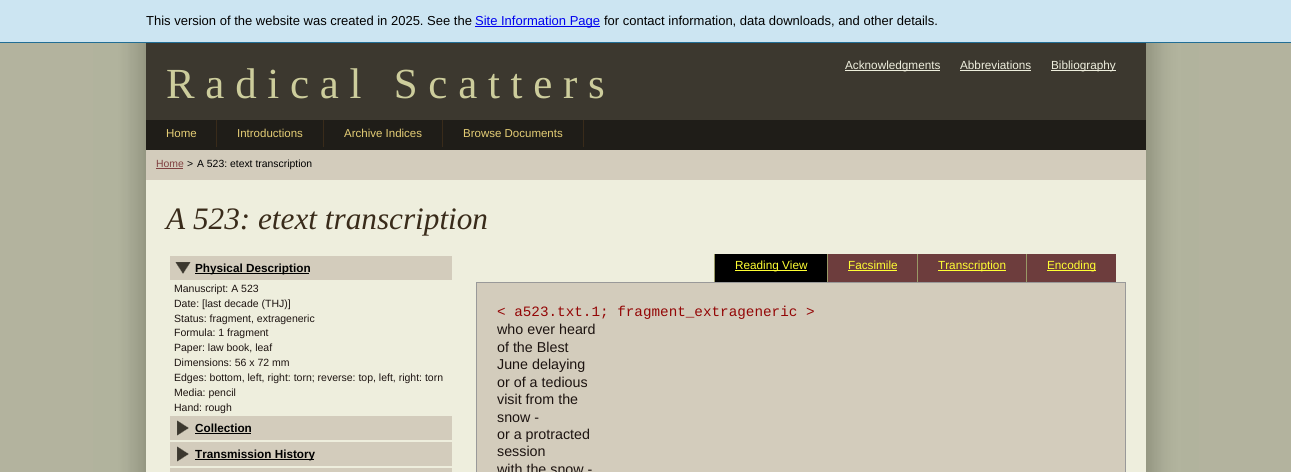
#include <cairo.h>
#include <math.h>
#include <stddef.h>

typedef struct { double x, y; const char *s; } line_t;
typedef struct { double x, y, w, h; unsigned color; } box_t;

static void ink(cairo_t *ctx, unsigned color) {
    cairo_set_source_rgb(ctx, (color >> 16) / 255.0, (color >> 8 & 255) / 255.0, (color & 255) / 255.0);
}

static void write_spaced(cairo_t *ctx, double x, double y, const char *s, double letter, double word) {
    cairo_move_to(ctx, x, y);
    while (*s) {
        char ch[5] = {0};
        int n = 0;
        do ch[n++] = *s++; while ((*s & 0xC0) == 0x80);
        cairo_show_text(ctx, ch);
        cairo_rel_move_to(ctx, letter + word * (*ch == ' '), 0);
    }
}

static void paste(cairo_t *ctx, const char *path, double x, double y, double w, double h) {
    cairo_surface_t *image = cairo_image_surface_create_from_png(path);
    cairo_save(ctx);
    cairo_set_source_surface(ctx, image, x, y);
    cairo_rectangle(ctx, x, y, w, h);
    cairo_fill(ctx);
    cairo_restore(ctx);
    cairo_surface_destroy(image);
}

int main(void) {
    cairo_surface_t *surface = cairo_image_surface_create(CAIRO_FORMAT_RGB24, 1291, 472);
    cairo_t *ctx = cairo_create(surface);
    cairo_font_options_t *options = cairo_font_options_create();
    cairo_font_options_set_hint_metrics(options, CAIRO_HINT_METRICS_OFF);
    cairo_font_options_set_hint_style(options, CAIRO_HINT_STYLE_NONE);
    cairo_set_font_options(ctx, options);
    cairo_set_miter_limit(ctx, 4);
    ink(ctx, 0xB3B39E);
    cairo_paint(ctx);
    ink(ctx, 0xCCE5F2);
    cairo_rectangle(ctx, 0, 0, 1291, 42);
    cairo_fill(ctx);
    ink(ctx, 0x226E95);
    cairo_rectangle(ctx, 0, 42, 1291, 1);
    cairo_fill(ctx);
    cairo_select_font_face(ctx, "Liberation Sans", CAIRO_FONT_SLANT_NORMAL, CAIRO_FONT_WEIGHT_NORMAL);
    cairo_set_font_size(ctx, 13);
    ink(ctx, 0x000000);
    cairo_move_to(ctx, 146, 25);
    cairo_show_text(ctx, "This version of the website was created in 2025. See the");
    ink(ctx, 0x0000EE);
    cairo_rectangle(ctx, 475, 26, 125, 1);
    cairo_fill(ctx);
    cairo_move_to(ctx, 475, 25);
    cairo_show_text(ctx, "Site Information Page");
    ink(ctx, 0x000000);
    cairo_move_to(ctx, 604, 25);
    cairo_show_text(ctx, "for contact information, data downloads, and other details.");
    paste(ctx, "media/1.png", 93, 43, 1106, 137);
    ink(ctx, 0x3C382F);
    cairo_rectangle(ctx, 146, 43, 1000, 77);
    cairo_fill(ctx);
    ink(ctx, 0xEEEEDD);
    cairo_rectangle(ctx, 845, 70, 95, 1);
    cairo_fill(ctx);
    cairo_set_font_size(ctx, 11.75);
    cairo_move_to(ctx, 845, 69);
    cairo_show_text(ctx, "Acknowledgments");
    cairo_move_to(ctx, 960, 69);
    cairo_show_text(ctx, "Abbreviations");
    cairo_rectangle(ctx, 960, 70, 71, 1);
    cairo_fill(ctx);
    cairo_rectangle(ctx, 1051, 70, 65, 1);
    cairo_fill(ctx);
    cairo_move_to(ctx, 1051, 69);
    cairo_show_text(ctx, "Bibliography");
    cairo_select_font_face(ctx, "Liberation Serif", CAIRO_FONT_SLANT_NORMAL, CAIRO_FONT_WEIGHT_NORMAL);
    cairo_set_font_size(ctx, 42.9);
    ink(ctx, 0xCDCD9C);
    write_spaced(ctx, 166, 98, "Radical Scatters", 10.75, 0);
    ink(ctx, 0x1F1D18);
    cairo_rectangle(ctx, 146, 120, 1000, 30);
    cairo_fill(ctx);
    ink(ctx, 0x392B1A);
    cairo_rectangle(ctx, 216, 120, 1, 27);
    cairo_fill(ctx);
    cairo_select_font_face(ctx, "Liberation Sans", CAIRO_FONT_SLANT_NORMAL, CAIRO_FONT_WEIGHT_NORMAL);
    cairo_set_font_size(ctx, 11.5);
    ink(ctx, 0xE4CD75);
    cairo_move_to(ctx, 166, 137);
    cairo_show_text(ctx, "Home");
    ink(ctx, 0x392B1A);
    cairo_rectangle(ctx, 323, 120, 1, 27);
    cairo_fill(ctx);
    ink(ctx, 0xE4CD75);
    cairo_move_to(ctx, 237, 137);
    cairo_show_text(ctx, "Introductions");
    ink(ctx, 0x392B1A);
    cairo_rectangle(ctx, 442, 120, 1, 27);
    cairo_fill(ctx);
    ink(ctx, 0xE4CD75);
    cairo_move_to(ctx, 344, 137);
    cairo_show_text(ctx, "Archive Indices");
    ink(ctx, 0x392B1A);
    cairo_rectangle(ctx, 583, 120, 1, 27);
    cairo_fill(ctx);
    ink(ctx, 0xE4CD75);
    cairo_move_to(ctx, 463, 137);
    cairo_show_text(ctx, "Browse Documents");
    ink(ctx, 0xD3CCBC);
    cairo_rectangle(ctx, 146, 150, 1000, 30);
    cairo_fill(ctx);
    cairo_set_font_size(ctx, 10.4);
    ink(ctx, 0x804040);
    cairo_move_to(ctx, 156, 167);
    cairo_show_text(ctx, "Home");
    cairo_rectangle(ctx, 156, 168, 27, 1);
    cairo_fill(ctx);
    ink(ctx, 0x000000);
    cairo_move_to(ctx, 187, 167);
    cairo_show_text(ctx, ">");
    cairo_move_to(ctx, 197, 167);
    cairo_show_text(ctx, "A 523: etext transcription");
    paste(ctx, "media/2.png", 93, 180, 1106, 292);
    ink(ctx, 0xEEEEDD);
    cairo_rectangle(ctx, 146, 180, 1000, 292);
    cairo_fill(ctx);
    cairo_select_font_face(ctx, "Liberation Serif", CAIRO_FONT_SLANT_ITALIC, CAIRO_FONT_WEIGHT_NORMAL);
    cairo_set_font_size(ctx, 31.25);
    ink(ctx, 0x392B1A);
    cairo_move_to(ctx, 166, 229);
    cairo_show_text(ctx, "A 523: etext transcription");
    ink(ctx, 0xD3CCBC);
    cairo_rectangle(ctx, 170, 256, 282, 24);
    cairo_fill(ctx);
    paste(ctx, "media/3.png", 175, 262, 16, 12);
    ink(ctx, 0x000000);
    cairo_rectangle(ctx, 195, 273, 114, 1);
    cairo_fill(ctx);
    cairo_select_font_face(ctx, "Liberation Sans", CAIRO_FONT_SLANT_NORMAL, CAIRO_FONT_WEIGHT_BOLD);
    cairo_set_font_size(ctx, 11.75);
    cairo_move_to(ctx, 195, 272);
    cairo_show_text(ctx, "Physical Description");
    cairo_select_font_face(ctx, "Liberation Sans", CAIRO_FONT_SLANT_NORMAL, CAIRO_FONT_WEIGHT_NORMAL);
    cairo_set_font_size(ctx, 10.5);
    ink(ctx, 0x1C1310);
    {
        static const line_t items[] = {
            {174, 292, "Manuscript: A 523"},
            {174, 307, "Date: [last decade (THJ)]"},
            {174, 322, "Status: fragment, extrageneric"},
            {174, 336, "Formula: 1 fragment"},
            {174, 351, "Paper: law book, leaf"},
            {174, 366, "Dimensions: 56 x 72 mm"},
            {174, 381, "Edges: bottom, left, right: torn; reverse: top, left, right: torn"},
            {174, 396, "Media: pencil"},
            {174, 411, "Hand: rough"},
        };
        for (size_t i = 0; i < sizeof items / sizeof *items; i++) {
            cairo_move_to(ctx, items[i].x, items[i].y);
            cairo_show_text(ctx, items[i].s);
        }
    }
    ink(ctx, 0xD3CCBC);
    cairo_rectangle(ctx, 170, 416, 282, 24);
    cairo_fill(ctx);
    paste(ctx, "media/4.png", 177, 420, 12, 16);
    cairo_select_font_face(ctx, "Liberation Sans", CAIRO_FONT_SLANT_NORMAL, CAIRO_FONT_WEIGHT_BOLD);
    cairo_set_font_size(ctx, 11.75);
    ink(ctx, 0x000000);
    cairo_move_to(ctx, 195, 432);
    cairo_show_text(ctx, "Collection");
    cairo_rectangle(ctx, 195, 433, 56, 1);
    cairo_fill(ctx);
    ink(ctx, 0xD3CCBC);
    cairo_rectangle(ctx, 170, 442, 282, 24);
    cairo_fill(ctx);
    paste(ctx, "media/4.png", 177, 446, 12, 16);
    ink(ctx, 0x000000);
    cairo_rectangle(ctx, 195, 459, 119, 1);
    cairo_fill(ctx);
    cairo_move_to(ctx, 195, 458);
    cairo_show_text(ctx, "Transmission History");
    {
        static const box_t items[] = {
            {170, 468, 282, 4, 0xD3CCBC},
            {714, 254, 1, 28, 0x999966},
            {715, 254, 112, 28, 0x000000},
            {735, 270, 72, 1, 0xFFFF33},
        };
        for (size_t i = 0; i < sizeof items / sizeof *items; i++) {
            ink(ctx, items[i].color);
            cairo_rectangle(ctx, items[i].x, items[i].y, items[i].w, items[i].h);
            cairo_fill(ctx);
        }
    }
    cairo_select_font_face(ctx, "Liberation Sans", CAIRO_FONT_SLANT_NORMAL, CAIRO_FONT_WEIGHT_NORMAL);
    cairo_move_to(ctx, 735, 269);
    cairo_show_text(ctx, "Reading View");
    ink(ctx, 0x999966);
    cairo_rectangle(ctx, 827, 254, 1, 28);
    cairo_fill(ctx);
    ink(ctx, 0x6D3D3D);
    cairo_rectangle(ctx, 828, 254, 89, 28);
    cairo_fill(ctx);
    ink(ctx, 0xFFFF33);
    cairo_move_to(ctx, 848, 269);
    cairo_show_text(ctx, "Facsimile");
    {
        static const box_t items[] = {
            {848, 270, 49, 1, 0xFFFF33},
            {917, 254, 1, 28, 0x999966},
            {918, 254, 108, 28, 0x6D3D3D},
            {938, 270, 68, 1, 0xFFFF33},
        };
        for (size_t i = 0; i < sizeof items / sizeof *items; i++) {
            ink(ctx, items[i].color);
            cairo_rectangle(ctx, items[i].x, items[i].y, items[i].w, items[i].h);
            cairo_fill(ctx);
        }
    }
    cairo_move_to(ctx, 938, 269);
    cairo_show_text(ctx, "Transcription");
    {
        static const box_t items[] = {
            {1026, 254, 1, 28, 0x999966},
            {1027, 254, 89, 28, 0x6D3D3D},
            {1047, 270, 49, 1, 0xFFFF33},
        };
        for (size_t i = 0; i < sizeof items / sizeof *items; i++) {
            ink(ctx, items[i].color);
            cairo_rectangle(ctx, items[i].x, items[i].y, items[i].w, items[i].h);
            cairo_fill(ctx);
        }
    }
    cairo_move_to(ctx, 1047, 269);
    cairo_show_text(ctx, "Encoding");
    ink(ctx, 0xD3CCBC);
    cairo_rectangle(ctx, 476.5, 282.5, 649, 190);
    cairo_fill_preserve(ctx);
    ink(ctx, 0x999999);
    cairo_set_line_width(ctx, 1);
    cairo_stroke(ctx);
    cairo_select_font_face(ctx, "Liberation Mono", CAIRO_FONT_SLANT_NORMAL, CAIRO_FONT_WEIGHT_NORMAL);
    cairo_set_font_size(ctx, 14.3);
    ink(ctx, 0x930606);
    cairo_move_to(ctx, 497, 316);
    cairo_show_text(ctx, "< a523.txt.1; fragment_extrageneric >");
    cairo_select_font_face(ctx, "Liberation Sans", CAIRO_FONT_SLANT_NORMAL, CAIRO_FONT_WEIGHT_NORMAL);
    ink(ctx, 0x1C1310);
    {
        static const line_t items[] = {
            {497, 334, "who ever heard"},
            {497, 352, "of the Blest"},
            {497, 369, "June delaying"},
            {497, 387, "or of a tedious"},
            {497, 404, "visit from the"},
            {497, 422, "snow -"},
            {497, 439, "or a protracted"},
            {497, 456, "session"},
            {497, 474, "with the snow -"},
        };
        for (size_t i = 0; i < sizeof items / sizeof *items; i++) {
            cairo_move_to(ctx, items[i].x, items[i].y);
            cairo_show_text(ctx, items[i].s);
        }
    }
    cairo_surface_write_to_png(surface, "image.png");
    cairo_font_options_destroy(options);
    cairo_destroy(ctx);
    cairo_surface_destroy(surface);
    return 0;
}
